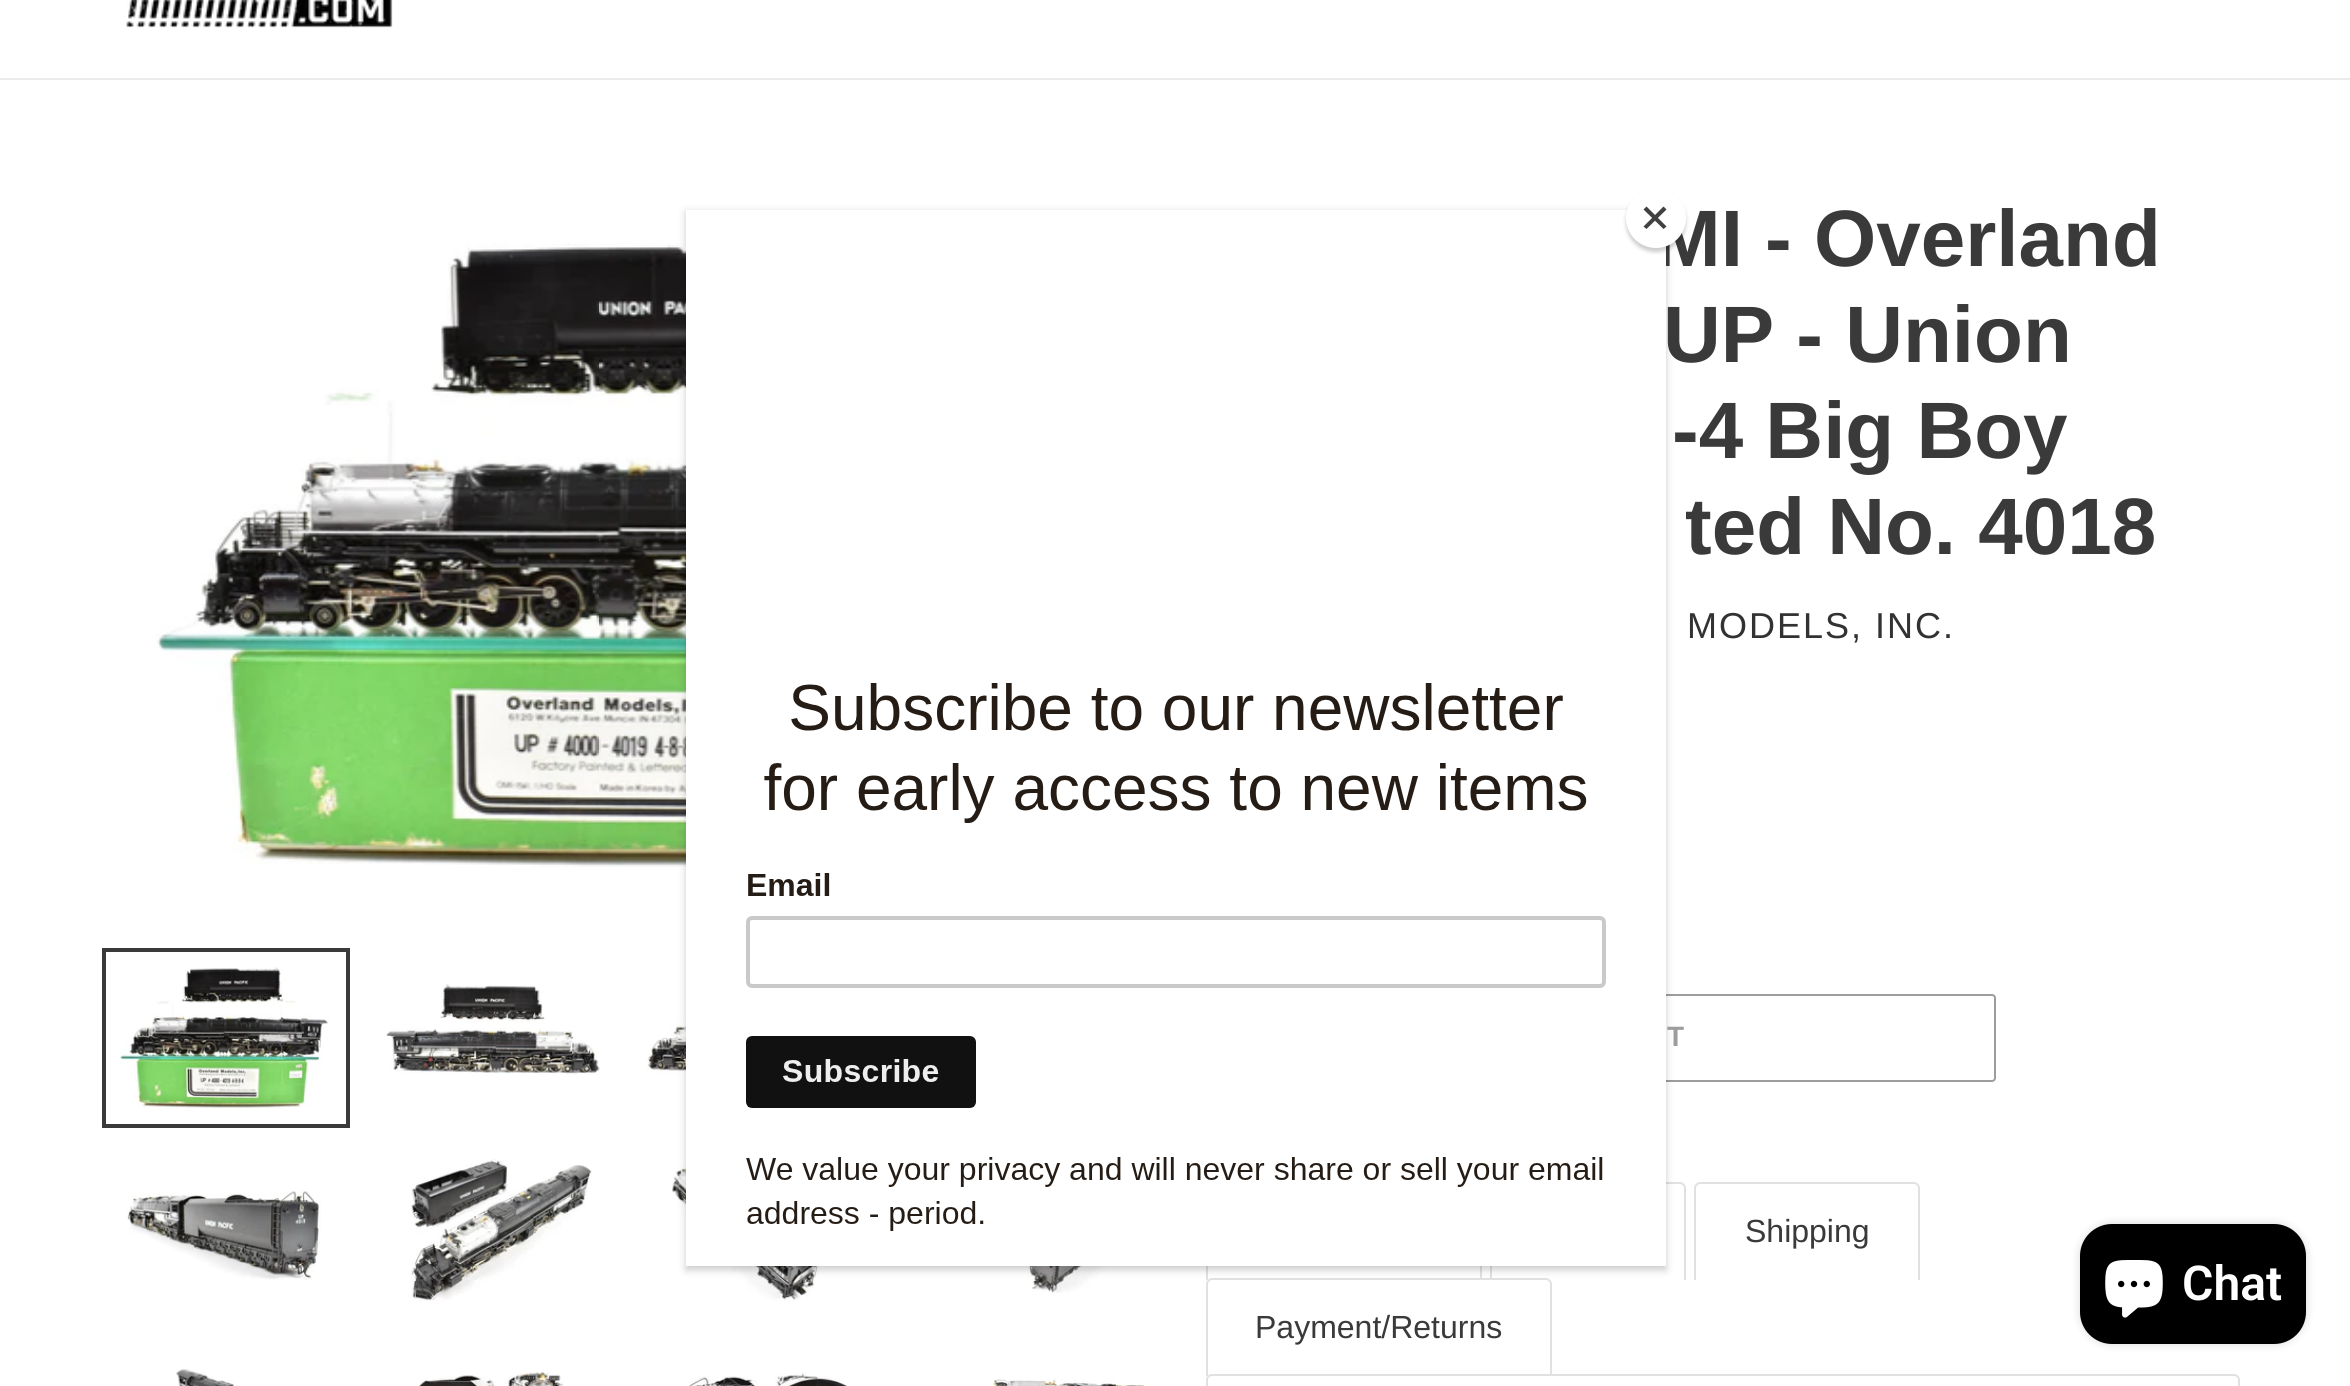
#include <cairo.h>
#include <math.h>
#include <stddef.h>

typedef struct { double x, y; const char *s; } line_t;

static void ink(cairo_t *ctx, unsigned color) {
    cairo_set_source_rgb(ctx, (color >> 16) / 255.0, (color >> 8 & 255) / 255.0, (color & 255) / 255.0);
}

static void write_spaced(cairo_t *ctx, double x, double y, const char *s, double letter, double word) {
    cairo_move_to(ctx, x, y);
    while (*s) {
        char ch[5] = {0};
        int n = 0;
        do ch[n++] = *s++; while ((*s & 0xC0) == 0x80);
        cairo_show_text(ctx, ch);
        cairo_rel_move_to(ctx, letter + word * (*ch == ' '), 0);
    }
}

static void round_path(cairo_t *ctx, double x, double y, double w, double h, double r) {
    cairo_new_sub_path(ctx);
    cairo_arc(ctx, x + w - r, y + h - r, r, 0, M_PI / 2);
    cairo_arc(ctx, x + r, y + h - r, r, M_PI / 2, M_PI);
    cairo_arc(ctx, x + r, y + r, r, M_PI, 1.5 * M_PI);
    cairo_arc(ctx, x + w - r, y + r, r, 1.5 * M_PI, 2 * M_PI);
    cairo_close_path(ctx);
}

static void blur_box(cairo_t *ctx, double x, double y, double w, double h, double r, double blur, double alpha) {
    cairo_push_group_with_content(ctx, CAIRO_CONTENT_ALPHA);
    cairo_set_operator(ctx, CAIRO_OPERATOR_SOURCE);
    for (int i = 15; i >= -15 && fmin(w, h) + blur * i / 3 > 0; i -= 2) {
        double e = blur * i / 6;
        cairo_set_source_rgba(ctx, 0, 0, 0, alpha * erfc((i - 1) / 8.5) / 2);
        round_path(ctx, x - e, y - e, w + 2 * e, h + 2 * e, fmax(0, fmin(r + e + blur * .6, fmin(w, h) / 2 + e)));
        cairo_fill(ctx);
    }
    cairo_pattern_t *soft = cairo_pop_group(ctx);
    cairo_mask(ctx, soft);
    cairo_pattern_destroy(soft);
}

static void paste(cairo_t *ctx, const char *path, double x, double y, double w, double h) {
    cairo_surface_t *image = cairo_image_surface_create_from_png(path);
    cairo_save(ctx);
    cairo_set_source_surface(ctx, image, x, y);
    cairo_rectangle(ctx, x, y, w, h);
    cairo_fill(ctx);
    cairo_restore(ctx);
    cairo_surface_destroy(image);
}

int main(void) {
    cairo_surface_t *surface = cairo_image_surface_create(CAIRO_FORMAT_RGB24, 2350, 1386);
    cairo_t *ctx = cairo_create(surface);
    cairo_font_options_t *options = cairo_font_options_create();
    cairo_font_options_set_hint_metrics(options, CAIRO_HINT_METRICS_OFF);
    cairo_font_options_set_hint_style(options, CAIRO_HINT_STYLE_NONE);
    cairo_set_font_options(ctx, options);
    cairo_set_miter_limit(ctx, 4);
    ink(ctx, 0xFFFFFF);
    cairo_paint(ctx);
    ink(ctx, 0xEBEBEB);
    cairo_rectangle(ctx, 0, 78, 2350, 2);
    cairo_fill(ctx);
    paste(ctx, "media/1.png", 126, 0, 267, 28);
    paste(ctx, "media/3.png", 156, 243, 530, 624);
    paste(ctx, "media/6.png", 646, 977, 40, 97);
    paste(ctx, "media/9.png", 672, 1165, 179, 136);
    paste(ctx, "media/10.png", 927, 1266, 204, 27);
    round_path(ctx, 1217, 995, 778, 86, 3);
    ink(ctx, 0x9D9D9D);
    cairo_stroke(ctx);
    ink(ctx, 0xE1E1E1);
    cairo_set_fill_rule(ctx, CAIRO_FILL_RULE_EVEN_ODD);
    cairo_new_path(ctx);
    cairo_move_to(ctx, 1212, 1182);
    cairo_line_to(ctx, 1476, 1182);
    cairo_curve_to(ctx, 1479, 1182, 1482, 1185, 1482, 1188);
    cairo_line_to(ctx, 1482, 1280);
    cairo_line_to(ctx, 1206, 1280);
    cairo_line_to(ctx, 1206, 1188);
    cairo_curve_to(ctx, 1206, 1185, 1209, 1182, 1212, 1182);
    cairo_close_path(ctx);
    cairo_move_to(ctx, 1212, 1184);
    cairo_line_to(ctx, 1476, 1184);
    cairo_curve_to(ctx, 1478, 1184, 1480, 1186, 1480, 1188);
    cairo_line_to(ctx, 1480, 1280);
    cairo_line_to(ctx, 1208, 1280);
    cairo_line_to(ctx, 1208, 1188);
    cairo_curve_to(ctx, 1208, 1186, 1210, 1184, 1212, 1184);
    cairo_close_path(ctx);
    cairo_fill(ctx);
    cairo_new_path(ctx);
    cairo_move_to(ctx, 1496, 1182);
    cairo_line_to(ctx, 1680, 1182);
    cairo_curve_to(ctx, 1683, 1182, 1686, 1185, 1686, 1188);
    cairo_line_to(ctx, 1686, 1280);
    cairo_line_to(ctx, 1490, 1280);
    cairo_line_to(ctx, 1490, 1188);
    cairo_curve_to(ctx, 1490, 1185, 1493, 1182, 1496, 1182);
    cairo_close_path(ctx);
    cairo_move_to(ctx, 1496, 1184);
    cairo_line_to(ctx, 1680, 1184);
    cairo_curve_to(ctx, 1682, 1184, 1684, 1186, 1684, 1188);
    cairo_line_to(ctx, 1684, 1280);
    cairo_line_to(ctx, 1492, 1280);
    cairo_line_to(ctx, 1492, 1188);
    cairo_curve_to(ctx, 1492, 1186, 1494, 1184, 1496, 1184);
    cairo_close_path(ctx);
    cairo_fill(ctx);
    round_path(ctx, 1207, 1375, 1032, 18, 5);
    cairo_stroke(ctx);
    cairo_new_path(ctx);
    cairo_move_to(ctx, 1212, 1278);
    cairo_line_to(ctx, 1546, 1278);
    cairo_curve_to(ctx, 1549, 1278, 1552, 1281, 1552, 1284);
    cairo_line_to(ctx, 1552, 1376);
    cairo_line_to(ctx, 1206, 1376);
    cairo_line_to(ctx, 1206, 1284);
    cairo_curve_to(ctx, 1206, 1281, 1209, 1278, 1212, 1278);
    cairo_close_path(ctx);
    cairo_move_to(ctx, 1212, 1280);
    cairo_line_to(ctx, 1546, 1280);
    cairo_curve_to(ctx, 1548, 1280, 1550, 1282, 1550, 1284);
    cairo_line_to(ctx, 1550, 1376);
    cairo_line_to(ctx, 1208, 1376);
    cairo_line_to(ctx, 1208, 1284);
    cairo_curve_to(ctx, 1208, 1282, 1210, 1280, 1212, 1280);
    cairo_close_path(ctx);
    cairo_fill(ctx);
    ink(ctx, 0x000000);
    blur_box(ctx, 686, 212, 980, 1058, 0, 4, 0.2);
    cairo_select_font_face(ctx, "Arimo", CAIRO_FONT_SLANT_NORMAL, CAIRO_FONT_WEIGHT_BOLD);
    cairo_set_font_size(ctx, 80);
    ink(ctx, 0x3A3A3A);
    cairo_move_to(ctx, 1654, 266);
    cairo_show_text(ctx, "MI - Overland");
    paste(ctx, "media/2.png", 686, 210, 980, 1056);
    ink(ctx, 0x000000);
    blur_box(ctx, 1626, 192, 60, 60, 30, 2, 0.2);
    ink(ctx, 0xFFFFFF);
    cairo_arc(ctx, 1656, 218, 30, 0, 2 * M_PI);
    cairo_fill(ctx);
    ink(ctx, 0x414141);
    cairo_set_fill_rule(ctx, CAIRO_FILL_RULE_WINDING);
    cairo_new_path(ctx);
    cairo_move_to(ctx, 1663.5, 206.5);
    cairo_line_to(ctx, 1666.5, 209.5);
    cairo_line_to(ctx, 1646.5, 229);
    cairo_line_to(ctx, 1643.5, 226.5);
    cairo_close_path(ctx);
    cairo_fill(ctx);
    cairo_new_path(ctx);
    cairo_move_to(ctx, 1643.5, 209.5);
    cairo_line_to(ctx, 1646.5, 206.5);
    cairo_line_to(ctx, 1666.5, 226.5);
    cairo_line_to(ctx, 1663.5, 229);
    cairo_close_path(ctx);
    cairo_fill(ctx);
    cairo_rectangle(ctx, 104, 950, 244, 176);
    ink(ctx, 0x3A3A3A);
    cairo_set_line_width(ctx, 4);
    cairo_stroke(ctx);
    paste(ctx, "media/4.png", 120, 967, 209, 141);
    paste(ctx, "media/5.png", 386, 984, 214, 90);
    paste(ctx, "media/7.png", 127, 1191, 194, 89);
    paste(ctx, "media/8.png", 411, 1158, 181, 143);
    paste(ctx, "media/11.png", 176, 1369, 67, 17);
    paste(ctx, "media/12.png", 417, 1369, 147, 17);
    paste(ctx, "media/13.png", 689, 1373, 159, 13);
    paste(ctx, "media/14.png", 992, 1379, 152, 7);
    {
        static const line_t items[] = {
            {1663, 362, "UP - Union"},
            {1672, 458, "-4 Big Boy"},
            {1685, 554, "ted No. 4018"},
        };
        for (size_t i = 0; i < sizeof items / sizeof *items; i++) {
            cairo_move_to(ctx, items[i].x, items[i].y);
            cairo_show_text(ctx, items[i].s);
        }
    }
    cairo_select_font_face(ctx, "Arimo", CAIRO_FONT_SLANT_NORMAL, CAIRO_FONT_WEIGHT_NORMAL);
    cairo_set_font_size(ctx, 36);
    ink(ctx, 0x333232);
    write_spaced(ctx, 1687, 638, "MODELS, INC.", 2, 0);
    cairo_select_font_face(ctx, "Arimo", CAIRO_FONT_SLANT_NORMAL, CAIRO_FONT_WEIGHT_BOLD);
    cairo_set_font_size(ctx, 28);
    ink(ctx, 0x9D9D9D);
    write_spaced(ctx, 1667, 1046, "T", 2, 0);
    ink(ctx, 0xE1E1E1);
    cairo_set_fill_rule(ctx, CAIRO_FILL_RULE_EVEN_ODD);
    cairo_new_path(ctx);
    cairo_move_to(ctx, 1700, 1182);
    cairo_line_to(ctx, 1914, 1182);
    cairo_curve_to(ctx, 1917, 1182, 1920, 1185, 1920, 1188);
    cairo_line_to(ctx, 1920, 1280);
    cairo_line_to(ctx, 1694, 1280);
    cairo_line_to(ctx, 1694, 1188);
    cairo_curve_to(ctx, 1694, 1185, 1697, 1182, 1700, 1182);
    cairo_close_path(ctx);
    cairo_move_to(ctx, 1700, 1184);
    cairo_line_to(ctx, 1914, 1184);
    cairo_curve_to(ctx, 1916, 1184, 1918, 1186, 1918, 1188);
    cairo_line_to(ctx, 1918, 1280);
    cairo_line_to(ctx, 1696, 1280);
    cairo_line_to(ctx, 1696, 1188);
    cairo_curve_to(ctx, 1696, 1186, 1698, 1184, 1700, 1184);
    cairo_close_path(ctx);
    cairo_fill(ctx);
    cairo_select_font_face(ctx, "Arimo", CAIRO_FONT_SLANT_NORMAL, CAIRO_FONT_WEIGHT_NORMAL);
    cairo_set_font_size(ctx, 32);
    ink(ctx, 0x3A3A3A);
    cairo_move_to(ctx, 1745, 1242);
    cairo_show_text(ctx, "Shipping");
    cairo_move_to(ctx, 1255, 1338);
    cairo_show_text(ctx, "Payment/Returns");
    ink(ctx, 0x000000);
    blur_box(ctx, 2080, 1224, 226, 120, 32, 5, 0.15);
    ink(ctx, 0x000000);
    round_path(ctx, 2080, 1224, 226, 120, 32);
    cairo_fill(ctx);
    paste(ctx, "media/15.png", 2105, 1260, 58, 58);
    cairo_select_font_face(ctx, "Roboto SemiBold", CAIRO_FONT_SLANT_NORMAL, CAIRO_FONT_WEIGHT_NORMAL);
    cairo_set_font_size(ctx, 48);
    ink(ctx, 0xFFFFFF);
    cairo_move_to(ctx, 2182, 1300);
    cairo_show_text(ctx, "Chat");
    cairo_surface_write_to_png(surface, "image.png");
    cairo_font_options_destroy(options);
    cairo_destroy(ctx);
    cairo_surface_destroy(surface);
    return 0;
}
